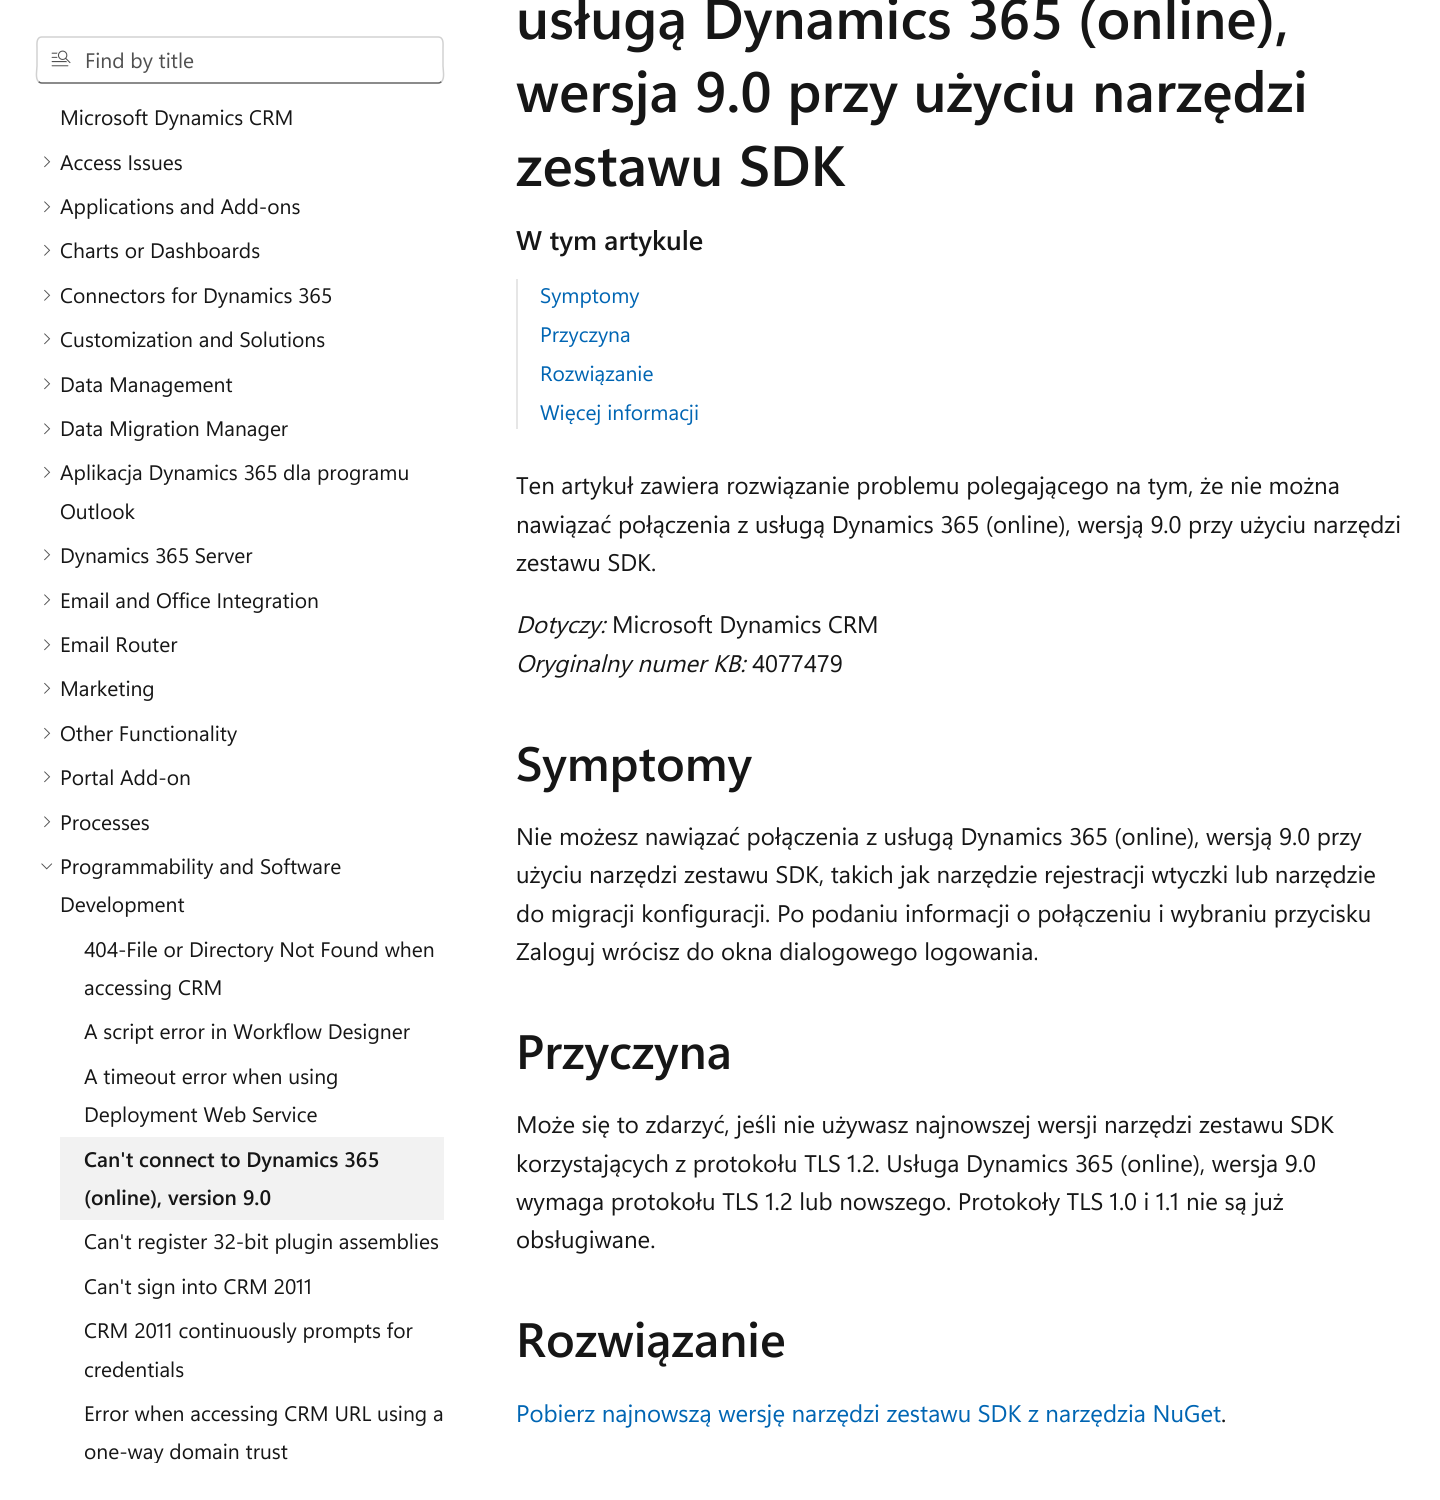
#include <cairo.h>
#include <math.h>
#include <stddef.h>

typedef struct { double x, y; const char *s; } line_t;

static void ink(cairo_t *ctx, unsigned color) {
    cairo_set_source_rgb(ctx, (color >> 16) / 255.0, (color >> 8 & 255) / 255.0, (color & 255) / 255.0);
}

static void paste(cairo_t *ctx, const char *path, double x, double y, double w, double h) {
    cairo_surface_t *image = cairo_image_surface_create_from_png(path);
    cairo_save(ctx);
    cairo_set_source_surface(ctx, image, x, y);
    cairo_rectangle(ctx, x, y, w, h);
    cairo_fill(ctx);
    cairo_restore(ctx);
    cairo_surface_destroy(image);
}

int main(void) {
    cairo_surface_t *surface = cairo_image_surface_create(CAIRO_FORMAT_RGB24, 1440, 1500);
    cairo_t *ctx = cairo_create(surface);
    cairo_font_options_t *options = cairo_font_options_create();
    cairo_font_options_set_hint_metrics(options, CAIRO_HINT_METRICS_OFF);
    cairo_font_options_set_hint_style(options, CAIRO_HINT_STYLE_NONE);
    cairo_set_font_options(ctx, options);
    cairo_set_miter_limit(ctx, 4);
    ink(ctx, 0xFFFFFF);
    cairo_paint(ctx);
    cairo_new_path(ctx);
    cairo_move_to(ctx, 441.5, 81.5);
    cairo_curve_to(ctx, 440.5, 82.5, 439.5, 83, 438, 83);
    cairo_line_to(ctx, 42, 83);
    cairo_curve_to(ctx, 40.5, 83, 39.5, 82.5, 38.5, 81.5);
    ink(ctx, 0x616161);
    cairo_set_line_width(ctx, 1.5);
    cairo_stroke(ctx);
    cairo_new_path(ctx);
    cairo_move_to(ctx, 38.5, 81.5);
    cairo_curve_to(ctx, 35, 78.5, 37, 69.5, 37, 66);
    cairo_line_to(ctx, 37, 48);
    cairo_curve_to(ctx, 37, 44, 36, 37, 42, 37);
    cairo_line_to(ctx, 438, 37);
    cairo_curve_to(ctx, 444, 37, 443, 44, 443, 48);
    cairo_line_to(ctx, 443, 66);
    cairo_curve_to(ctx, 443, 69.5, 445, 78.5, 441.5, 81.5);
    ink(ctx, 0xD1D1D1);
    cairo_stroke(ctx);
    paste(ctx, "media/1.png", 51, 50, 20, 17);
    cairo_select_font_face(ctx, "Segoe UI", CAIRO_FONT_SLANT_NORMAL, CAIRO_FONT_WEIGHT_NORMAL);
    cairo_set_font_size(ctx, 21);
    ink(ctx, 0x505050);
    cairo_move_to(ctx, 85, 68);
    cairo_show_text(ctx, "Find by title");
    ink(ctx, 0x161616);
    cairo_move_to(ctx, 60, 125);
    cairo_show_text(ctx, "Microsoft Dynamics CRM");
    paste(ctx, "media/2.png", 44, 156, 7, 12);
    cairo_move_to(ctx, 60, 170);
    cairo_show_text(ctx, "Access Issues");
    paste(ctx, "media/2.png", 44, 201, 7, 12);
    cairo_move_to(ctx, 60, 214);
    cairo_show_text(ctx, "Applications and Add-ons");
    paste(ctx, "media/3.png", 44, 244, 7, 12);
    cairo_move_to(ctx, 60, 258);
    cairo_show_text(ctx, "Charts or Dashboards");
    paste(ctx, "media/3.png", 44, 289, 7, 12);
    cairo_move_to(ctx, 60, 303);
    cairo_show_text(ctx, "Connectors for Dynamics 365");
    paste(ctx, "media/2.png", 44, 333, 7, 12);
    cairo_move_to(ctx, 60, 347);
    cairo_show_text(ctx, "Customization and Solutions");
    paste(ctx, "media/2.png", 44, 378, 7, 12);
    cairo_move_to(ctx, 60, 392);
    cairo_show_text(ctx, "Data Management");
    paste(ctx, "media/2.png", 44, 423, 7, 12);
    cairo_move_to(ctx, 60, 436);
    cairo_show_text(ctx, "Data Migration Manager");
    paste(ctx, "media/3.png", 44, 466, 7, 12);
    cairo_move_to(ctx, 60, 480);
    cairo_show_text(ctx, "Aplikacja Dynamics 365 dla programu");
    cairo_move_to(ctx, 60, 519);
    cairo_show_text(ctx, "Outlook");
    paste(ctx, "media/2.png", 44, 549, 7, 12);
    cairo_move_to(ctx, 60, 563);
    cairo_show_text(ctx, "Dynamics 365 Server");
    paste(ctx, "media/2.png", 44, 594, 7, 12);
    cairo_move_to(ctx, 60, 608);
    cairo_show_text(ctx, "Email and Office Integration");
    paste(ctx, "media/2.png", 44, 639, 7, 12);
    cairo_move_to(ctx, 60, 652);
    cairo_show_text(ctx, "Email Router");
    paste(ctx, "media/3.png", 44, 682, 7, 12);
    cairo_move_to(ctx, 60, 696);
    cairo_show_text(ctx, "Marketing");
    paste(ctx, "media/3.png", 44, 727, 7, 12);
    cairo_move_to(ctx, 60, 741);
    cairo_show_text(ctx, "Other Functionality");
    paste(ctx, "media/2.png", 44, 771, 7, 12);
    cairo_move_to(ctx, 60, 785);
    cairo_show_text(ctx, "Portal Add-on");
    paste(ctx, "media/2.png", 44, 816, 7, 12);
    cairo_move_to(ctx, 60, 830);
    cairo_show_text(ctx, "Processes");
    paste(ctx, "media/4.png", 41, 863, 12, 7);
    {
        static const line_t items[] = {
            {60, 874, "Programmability and Software"},
            {60, 912, "Development"},
            {84, 957, "404-File or Directory Not Found when"},
            {84, 995, "accessing CRM"},
            {84, 1039, "A script error in Workflow Designer"},
            {84, 1084, "A timeout error when using"},
            {84, 1122, "Deployment Web Service"},
        };
        for (size_t i = 0; i < sizeof items / sizeof *items; i++) {
            cairo_move_to(ctx, items[i].x, items[i].y);
            cairo_show_text(ctx, items[i].s);
        }
    }
    ink(ctx, 0xF2F2F2);
    cairo_rectangle(ctx, 60, 1137, 384, 83);
    cairo_fill(ctx);
    cairo_select_font_face(ctx, "Segoe UI SemiBold", CAIRO_FONT_SLANT_NORMAL, CAIRO_FONT_WEIGHT_NORMAL);
    ink(ctx, 0x161616);
    cairo_move_to(ctx, 84, 1167);
    cairo_show_text(ctx, "Can't connect to Dynamics 365");
    cairo_move_to(ctx, 84, 1205);
    cairo_show_text(ctx, "(online), version 9.0");
    cairo_select_font_face(ctx, "Segoe UI", CAIRO_FONT_SLANT_NORMAL, CAIRO_FONT_WEIGHT_NORMAL);
    {
        static const line_t items[] = {
            {84, 1249, "Can't register 32-bit plugin assemblies"},
            {84, 1294, "Can't sign into CRM 2011"},
            {84, 1338, "CRM 2011 continuously prompts for"},
            {84, 1377, "credentials"},
            {84, 1421, "Error when accessing CRM URL using a"},
        };
        for (size_t i = 0; i < sizeof items / sizeof *items; i++) {
            cairo_move_to(ctx, items[i].x, items[i].y);
            cairo_show_text(ctx, items[i].s);
        }
    }
    cairo_save(ctx);
    cairo_rectangle(ctx, 36, 96, 408, 1367);
    cairo_clip(ctx);
    cairo_move_to(ctx, 84, 1459);
    cairo_show_text(ctx, "one-way domain trust");
    cairo_restore(ctx);
    cairo_select_font_face(ctx, "Segoe UI SemiBold", CAIRO_FONT_SLANT_NORMAL, CAIRO_FONT_WEIGHT_NORMAL);
    cairo_set_font_size(ctx, 56.8);
    {
        static const line_t items[] = {
            {516, 39, "usługą Dynamics 365 (online),"},
            {516, 112, "wersja 9.0 przy użyciu narzędzi"},
            {516, 186, "zestawu SDK"},
        };
        for (size_t i = 0; i < sizeof items / sizeof *items; i++) {
            cairo_move_to(ctx, items[i].x, items[i].y);
            cairo_show_text(ctx, items[i].s);
        }
    }
    cairo_set_font_size(ctx, 27);
    cairo_move_to(ctx, 516, 250);
    cairo_show_text(ctx, "W tym artykule");
    ink(ctx, 0xE6E6E6);
    cairo_rectangle(ctx, 516, 279, 2, 150);
    cairo_fill(ctx);
    cairo_select_font_face(ctx, "Segoe UI", CAIRO_FONT_SLANT_NORMAL, CAIRO_FONT_WEIGHT_NORMAL);
    cairo_set_font_size(ctx, 21);
    ink(ctx, 0x0065B3);
    {
        static const line_t items[] = {
            {540, 303, "Symptomy"},
            {540, 342, "Przyczyna"},
            {540, 381, "Rozwiązanie"},
            {540, 420, "Więcej informacji"},
        };
        for (size_t i = 0; i < sizeof items / sizeof *items; i++) {
            cairo_move_to(ctx, items[i].x, items[i].y);
            cairo_show_text(ctx, items[i].s);
        }
    }
    cairo_set_font_size(ctx, 24);
    ink(ctx, 0x161616);
    {
        static const line_t items[] = {
            {516, 494, "Ten artykuł zawiera rozwiązanie problemu polegającego na tym, że nie można"},
            {516, 533, "nawiązać połączenia z usługą Dynamics 365 (online), wersją 9.0 przy użyciu narzędzi"},
            {516, 571, "zestawu SDK."},
        };
        for (size_t i = 0; i < sizeof items / sizeof *items; i++) {
            cairo_move_to(ctx, items[i].x, items[i].y);
            cairo_show_text(ctx, items[i].s);
        }
    }
    cairo_select_font_face(ctx, "Segoe UI", CAIRO_FONT_SLANT_ITALIC, CAIRO_FONT_WEIGHT_NORMAL);
    cairo_move_to(ctx, 516, 633);
    cairo_show_text(ctx, "Dotyczy:");
    cairo_select_font_face(ctx, "Segoe UI", CAIRO_FONT_SLANT_NORMAL, CAIRO_FONT_WEIGHT_NORMAL);
    cairo_move_to(ctx, 612, 633);
    cairo_show_text(ctx, "Microsoft Dynamics CRM");
    cairo_select_font_face(ctx, "Segoe UI", CAIRO_FONT_SLANT_ITALIC, CAIRO_FONT_WEIGHT_NORMAL);
    cairo_move_to(ctx, 516, 672);
    cairo_show_text(ctx, "Oryginalny numer KB:");
    cairo_select_font_face(ctx, "Segoe UI", CAIRO_FONT_SLANT_NORMAL, CAIRO_FONT_WEIGHT_NORMAL);
    cairo_move_to(ctx, 752, 672);
    cairo_show_text(ctx, "4077479");
    cairo_select_font_face(ctx, "Segoe UI SemiBold", CAIRO_FONT_SLANT_NORMAL, CAIRO_FONT_WEIGHT_NORMAL);
    cairo_set_font_size(ctx, 48.25);
    cairo_move_to(ctx, 516, 781);
    cairo_show_text(ctx, "Symptomy");
    cairo_select_font_face(ctx, "Segoe UI", CAIRO_FONT_SLANT_NORMAL, CAIRO_FONT_WEIGHT_NORMAL);
    cairo_set_font_size(ctx, 24);
    {
        static const line_t items[] = {
            {516, 845, "Nie możesz nawiązać połączenia z usługą Dynamics 365 (online), wersją 9.0 przy"},
            {516, 883, "użyciu narzędzi zestawu SDK, takich jak narzędzie rejestracji wtyczki lub narzędzie"},
            {516, 922, "do migracji konfiguracji. Po podaniu informacji o połączeniu i wybraniu przycisku"},
            {516, 960, "Zaloguj wrócisz do okna dialogowego logowania."},
        };
        for (size_t i = 0; i < sizeof items / sizeof *items; i++) {
            cairo_move_to(ctx, items[i].x, items[i].y);
            cairo_show_text(ctx, items[i].s);
        }
    }
    cairo_select_font_face(ctx, "Segoe UI SemiBold", CAIRO_FONT_SLANT_NORMAL, CAIRO_FONT_WEIGHT_NORMAL);
    cairo_set_font_size(ctx, 48.25);
    cairo_move_to(ctx, 516, 1069);
    cairo_show_text(ctx, "Przyczyna");
    cairo_select_font_face(ctx, "Segoe UI", CAIRO_FONT_SLANT_NORMAL, CAIRO_FONT_WEIGHT_NORMAL);
    cairo_set_font_size(ctx, 24);
    {
        static const line_t items[] = {
            {516, 1133, "Może się to zdarzyć, jeśli nie używasz najnowszej wersji narzędzi zestawu SDK"},
            {516, 1172, "korzystających z protokołu TLS 1.2. Usługa Dynamics 365 (online), wersja 9.0"},
            {516, 1210, "wymaga protokołu TLS 1.2 lub nowszego. Protokoły TLS 1.0 i 1.1 nie są już"},
            {516, 1248, "obsługiwane."},
        };
        for (size_t i = 0; i < sizeof items / sizeof *items; i++) {
            cairo_move_to(ctx, items[i].x, items[i].y);
            cairo_show_text(ctx, items[i].s);
        }
    }
    cairo_select_font_face(ctx, "Segoe UI SemiBold", CAIRO_FONT_SLANT_NORMAL, CAIRO_FONT_WEIGHT_NORMAL);
    cairo_set_font_size(ctx, 48.25);
    cairo_move_to(ctx, 516, 1357);
    cairo_show_text(ctx, "Rozwiązanie");
    cairo_select_font_face(ctx, "Segoe UI", CAIRO_FONT_SLANT_NORMAL, CAIRO_FONT_WEIGHT_NORMAL);
    cairo_set_font_size(ctx, 24);
    ink(ctx, 0x0065B3);
    cairo_move_to(ctx, 516, 1422);
    cairo_show_text(ctx, "Pobierz najnowszą wersję narzędzi zestawu SDK z narzędzia NuGet");
    ink(ctx, 0x161616);
    cairo_move_to(ctx, 1221, 1422);
    cairo_show_text(ctx, ".");
    cairo_surface_write_to_png(surface, "image.png");
    cairo_font_options_destroy(options);
    cairo_destroy(ctx);
    cairo_surface_destroy(surface);
    return 0;
}
